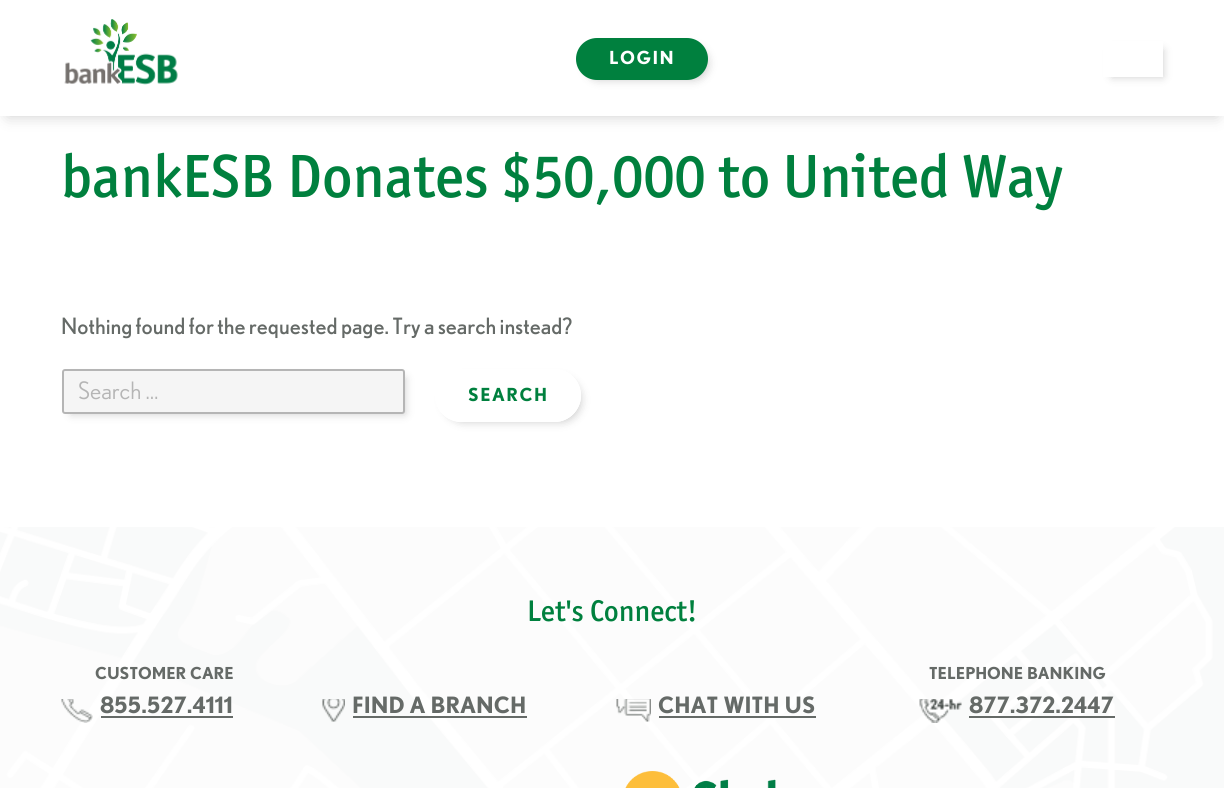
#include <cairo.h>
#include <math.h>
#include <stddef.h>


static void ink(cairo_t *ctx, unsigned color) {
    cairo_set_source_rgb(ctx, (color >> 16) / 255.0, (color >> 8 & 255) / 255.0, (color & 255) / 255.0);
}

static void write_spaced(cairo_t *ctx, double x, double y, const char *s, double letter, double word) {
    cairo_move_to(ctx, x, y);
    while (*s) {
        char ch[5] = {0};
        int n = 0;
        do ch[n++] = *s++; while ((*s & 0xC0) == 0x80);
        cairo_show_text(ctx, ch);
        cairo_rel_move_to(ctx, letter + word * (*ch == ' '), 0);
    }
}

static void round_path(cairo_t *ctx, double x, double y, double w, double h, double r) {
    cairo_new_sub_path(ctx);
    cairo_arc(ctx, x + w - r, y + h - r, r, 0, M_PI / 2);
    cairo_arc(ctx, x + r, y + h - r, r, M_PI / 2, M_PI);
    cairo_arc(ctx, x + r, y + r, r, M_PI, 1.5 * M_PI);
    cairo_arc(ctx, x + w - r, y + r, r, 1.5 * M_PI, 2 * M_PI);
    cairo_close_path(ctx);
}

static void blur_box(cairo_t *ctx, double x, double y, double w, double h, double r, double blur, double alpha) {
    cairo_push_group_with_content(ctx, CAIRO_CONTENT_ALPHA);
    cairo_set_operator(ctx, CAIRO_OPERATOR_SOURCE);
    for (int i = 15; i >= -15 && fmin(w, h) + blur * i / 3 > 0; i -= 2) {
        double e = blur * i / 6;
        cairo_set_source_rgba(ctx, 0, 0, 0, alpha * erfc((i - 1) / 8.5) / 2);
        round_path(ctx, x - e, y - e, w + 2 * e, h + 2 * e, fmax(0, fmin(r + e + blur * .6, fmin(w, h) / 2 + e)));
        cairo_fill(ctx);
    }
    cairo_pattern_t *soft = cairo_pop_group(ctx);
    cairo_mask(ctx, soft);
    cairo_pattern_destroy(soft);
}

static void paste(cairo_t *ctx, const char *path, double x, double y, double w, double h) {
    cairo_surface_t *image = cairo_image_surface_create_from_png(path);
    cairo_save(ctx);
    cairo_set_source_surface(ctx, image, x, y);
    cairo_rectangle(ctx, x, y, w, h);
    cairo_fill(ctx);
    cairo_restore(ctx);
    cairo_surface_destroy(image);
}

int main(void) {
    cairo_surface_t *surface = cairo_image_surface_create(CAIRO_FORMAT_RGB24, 1224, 788);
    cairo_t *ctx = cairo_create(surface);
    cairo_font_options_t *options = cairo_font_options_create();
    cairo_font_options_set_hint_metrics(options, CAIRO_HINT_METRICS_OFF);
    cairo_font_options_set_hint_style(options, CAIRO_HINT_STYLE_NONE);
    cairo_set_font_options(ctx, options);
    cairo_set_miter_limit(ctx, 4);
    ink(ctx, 0xFFFFFF);
    cairo_paint(ctx);
    cairo_save(ctx);
    cairo_set_fill_rule(ctx, CAIRO_FILL_RULE_EVEN_ODD);
    cairo_new_path(ctx);
    cairo_move_to(ctx, 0, 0);
    cairo_line_to(ctx, 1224, 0);
    cairo_line_to(ctx, 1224, 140);
    cairo_line_to(ctx, 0, 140);
    cairo_close_path(ctx);
    cairo_move_to(ctx, 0, 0);
    cairo_line_to(ctx, 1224, 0);
    cairo_line_to(ctx, 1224, 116);
    cairo_line_to(ctx, 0, 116);
    cairo_close_path(ctx);
    cairo_clip(ctx);
    ink(ctx, 0x000000);
    blur_box(ctx, 8, 15, 1209, 101, 0, 7.5, 0.2);
    cairo_restore(ctx);
    paste(ctx, "media/1.png", 64, 19, 114, 66);
    ink(ctx, 0x000000);
    blur_box(ctx, 585, 47, 123, 33, 16.5, 4.5, 0.2);
    ink(ctx, 0x00803E);
    round_path(ctx, 577.5, 39.5, 129, 39, 19.5);
    cairo_fill_preserve(ctx);
    cairo_set_line_width(ctx, 3);
    cairo_stroke(ctx);
    cairo_select_font_face(ctx, "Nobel", CAIRO_FONT_SLANT_NORMAL, CAIRO_FONT_WEIGHT_BOLD);
    cairo_set_font_size(ctx, 18);
    ink(ctx, 0xFFFFFF);
    write_spaced(ctx, 609, 64, "LOGIN", 1.5, 0);
    cairo_save(ctx);
    cairo_set_fill_rule(ctx, CAIRO_FILL_RULE_EVEN_ODD);
    cairo_new_path(ctx);
    cairo_move_to(ctx, 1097, 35);
    cairo_line_to(ctx, 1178, 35);
    cairo_line_to(ctx, 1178, 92);
    cairo_line_to(ctx, 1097, 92);
    cairo_close_path(ctx);
    cairo_move_to(ctx, 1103, 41);
    cairo_line_to(ctx, 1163, 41);
    cairo_line_to(ctx, 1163, 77);
    cairo_line_to(ctx, 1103, 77);
    cairo_close_path(ctx);
    cairo_clip(ctx);
    ink(ctx, 0x000000);
    blur_box(ctx, 1112, 50, 51, 27, 0, 4.5, 0.2);
    cairo_restore(ctx);
    cairo_select_font_face(ctx, "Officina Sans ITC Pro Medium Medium", CAIRO_FONT_SLANT_NORMAL, CAIRO_FONT_WEIGHT_NORMAL);
    cairo_set_font_size(ctx, 61.25);
    ink(ctx, 0x00803E);
    cairo_move_to(ctx, 61, 197);
    cairo_show_text(ctx, "bankESB Donates $50,000 to United Way");
    cairo_select_font_face(ctx, "Nobel", CAIRO_FONT_SLANT_NORMAL, CAIRO_FONT_WEIGHT_NORMAL);
    cairo_set_font_size(ctx, 22.5);
    ink(ctx, 0x656A67);
    cairo_move_to(ctx, 61, 334);
    cairo_show_text(ctx, "Nothing found for the requested page. Try a search instead?");
    ink(ctx, 0x000000);
    blur_box(ctx, 71, 378, 334, 36, 0, 4.5, 0.2);
    ink(ctx, 0xF5F5F5);
    cairo_rectangle(ctx, 64, 371, 339, 41);
    cairo_fill(ctx);
    round_path(ctx, 63, 370, 341, 43, 2);
    ink(ctx, 0xB5B5B5);
    cairo_set_line_width(ctx, 2);
    cairo_stroke(ctx);
    cairo_select_font_face(ctx, "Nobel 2", CAIRO_FONT_SLANT_NORMAL, CAIRO_FONT_WEIGHT_NORMAL);
    cairo_set_font_size(ctx, 24);
    cairo_move_to(ctx, 78, 399);
    cairo_show_text(ctx, "Search …");
    cairo_save(ctx);
    cairo_set_fill_rule(ctx, CAIRO_FILL_RULE_EVEN_ODD);
    cairo_new_path(ctx);
    cairo_move_to(ctx, 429, 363);
    cairo_line_to(ctx, 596, 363);
    cairo_line_to(ctx, 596, 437);
    cairo_line_to(ctx, 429, 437);
    cairo_close_path(ctx);
    cairo_move_to(ctx, 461.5, 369);
    cairo_line_to(ctx, 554.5, 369);
    cairo_curve_to(ctx, 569, 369, 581, 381, 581, 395.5);
    cairo_curve_to(ctx, 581, 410, 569, 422, 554.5, 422);
    cairo_line_to(ctx, 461.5, 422);
    cairo_curve_to(ctx, 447, 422, 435, 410, 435, 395.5);
    cairo_curve_to(ctx, 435, 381, 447, 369, 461.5, 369);
    cairo_close_path(ctx);
    cairo_clip(ctx);
    ink(ctx, 0x000000);
    blur_box(ctx, 444, 378, 137, 44, 22, 4.5, 0.2);
    cairo_restore(ctx);
    round_path(ctx, 436.5, 370.5, 143, 50, 25);
    ink(ctx, 0xFFFFFF);
    cairo_set_line_width(ctx, 3);
    cairo_stroke(ctx);
    cairo_select_font_face(ctx, "Nobel", CAIRO_FONT_SLANT_NORMAL, CAIRO_FONT_WEIGHT_BOLD);
    cairo_set_font_size(ctx, 18);
    ink(ctx, 0x00803E);
    write_spaced(ctx, 468, 401, "SEARCH", 1.5, 0);
    paste(ctx, "media/2.png", 0, 527, 1224, 261);
    cairo_select_font_face(ctx, "Officina Sans ITC Pro Medium Medium", CAIRO_FONT_SLANT_NORMAL, CAIRO_FONT_WEIGHT_NORMAL);
    cairo_set_font_size(ctx, 30);
    cairo_move_to(ctx, 527, 621);
    cairo_show_text(ctx, "Let's Connect!");
    cairo_select_font_face(ctx, "Nobel", CAIRO_FONT_SLANT_NORMAL, CAIRO_FONT_WEIGHT_BOLD);
    cairo_set_font_size(ctx, 16.5);
    ink(ctx, 0x656A67);
    cairo_move_to(ctx, 95, 679);
    cairo_show_text(ctx, "CUSTOMER CARE");
    paste(ctx, "media/3.png", 61, 699, 32, 24);
    cairo_set_font_size(ctx, 22.5);
    cairo_move_to(ctx, 100, 713);
    cairo_show_text(ctx, "855.527.4111");
    cairo_rectangle(ctx, 101, 716, 132, 2);
    cairo_fill(ctx);
    paste(ctx, "media/4.png", 322, 699, 23, 23);
    cairo_move_to(ctx, 352, 713);
    cairo_show_text(ctx, "FIND A BRANCH");
    cairo_rectangle(ctx, 353, 716, 174, 2);
    cairo_fill(ctx);
    paste(ctx, "media/5.png", 616, 699, 35, 23);
    cairo_move_to(ctx, 658, 713);
    cairo_show_text(ctx, "CHAT WITH US");
    cairo_rectangle(ctx, 659, 716, 157, 2);
    cairo_fill(ctx);
    cairo_set_font_size(ctx, 16.5);
    cairo_move_to(ctx, 929, 679);
    cairo_show_text(ctx, "TELEPHONE BANKING");
    paste(ctx, "media/6.png", 919, 699, 43, 24);
    cairo_set_font_size(ctx, 22.5);
    cairo_move_to(ctx, 969, 713);
    cairo_show_text(ctx, "877.372.2447");
    cairo_rectangle(ctx, 969, 716, 146, 2);
    cairo_fill(ctx);
    paste(ctx, "media/7.png", 625, 771, 151, 17);
    cairo_surface_write_to_png(surface, "image.png");
    cairo_font_options_destroy(options);
    cairo_destroy(ctx);
    cairo_surface_destroy(surface);
    return 0;
}
